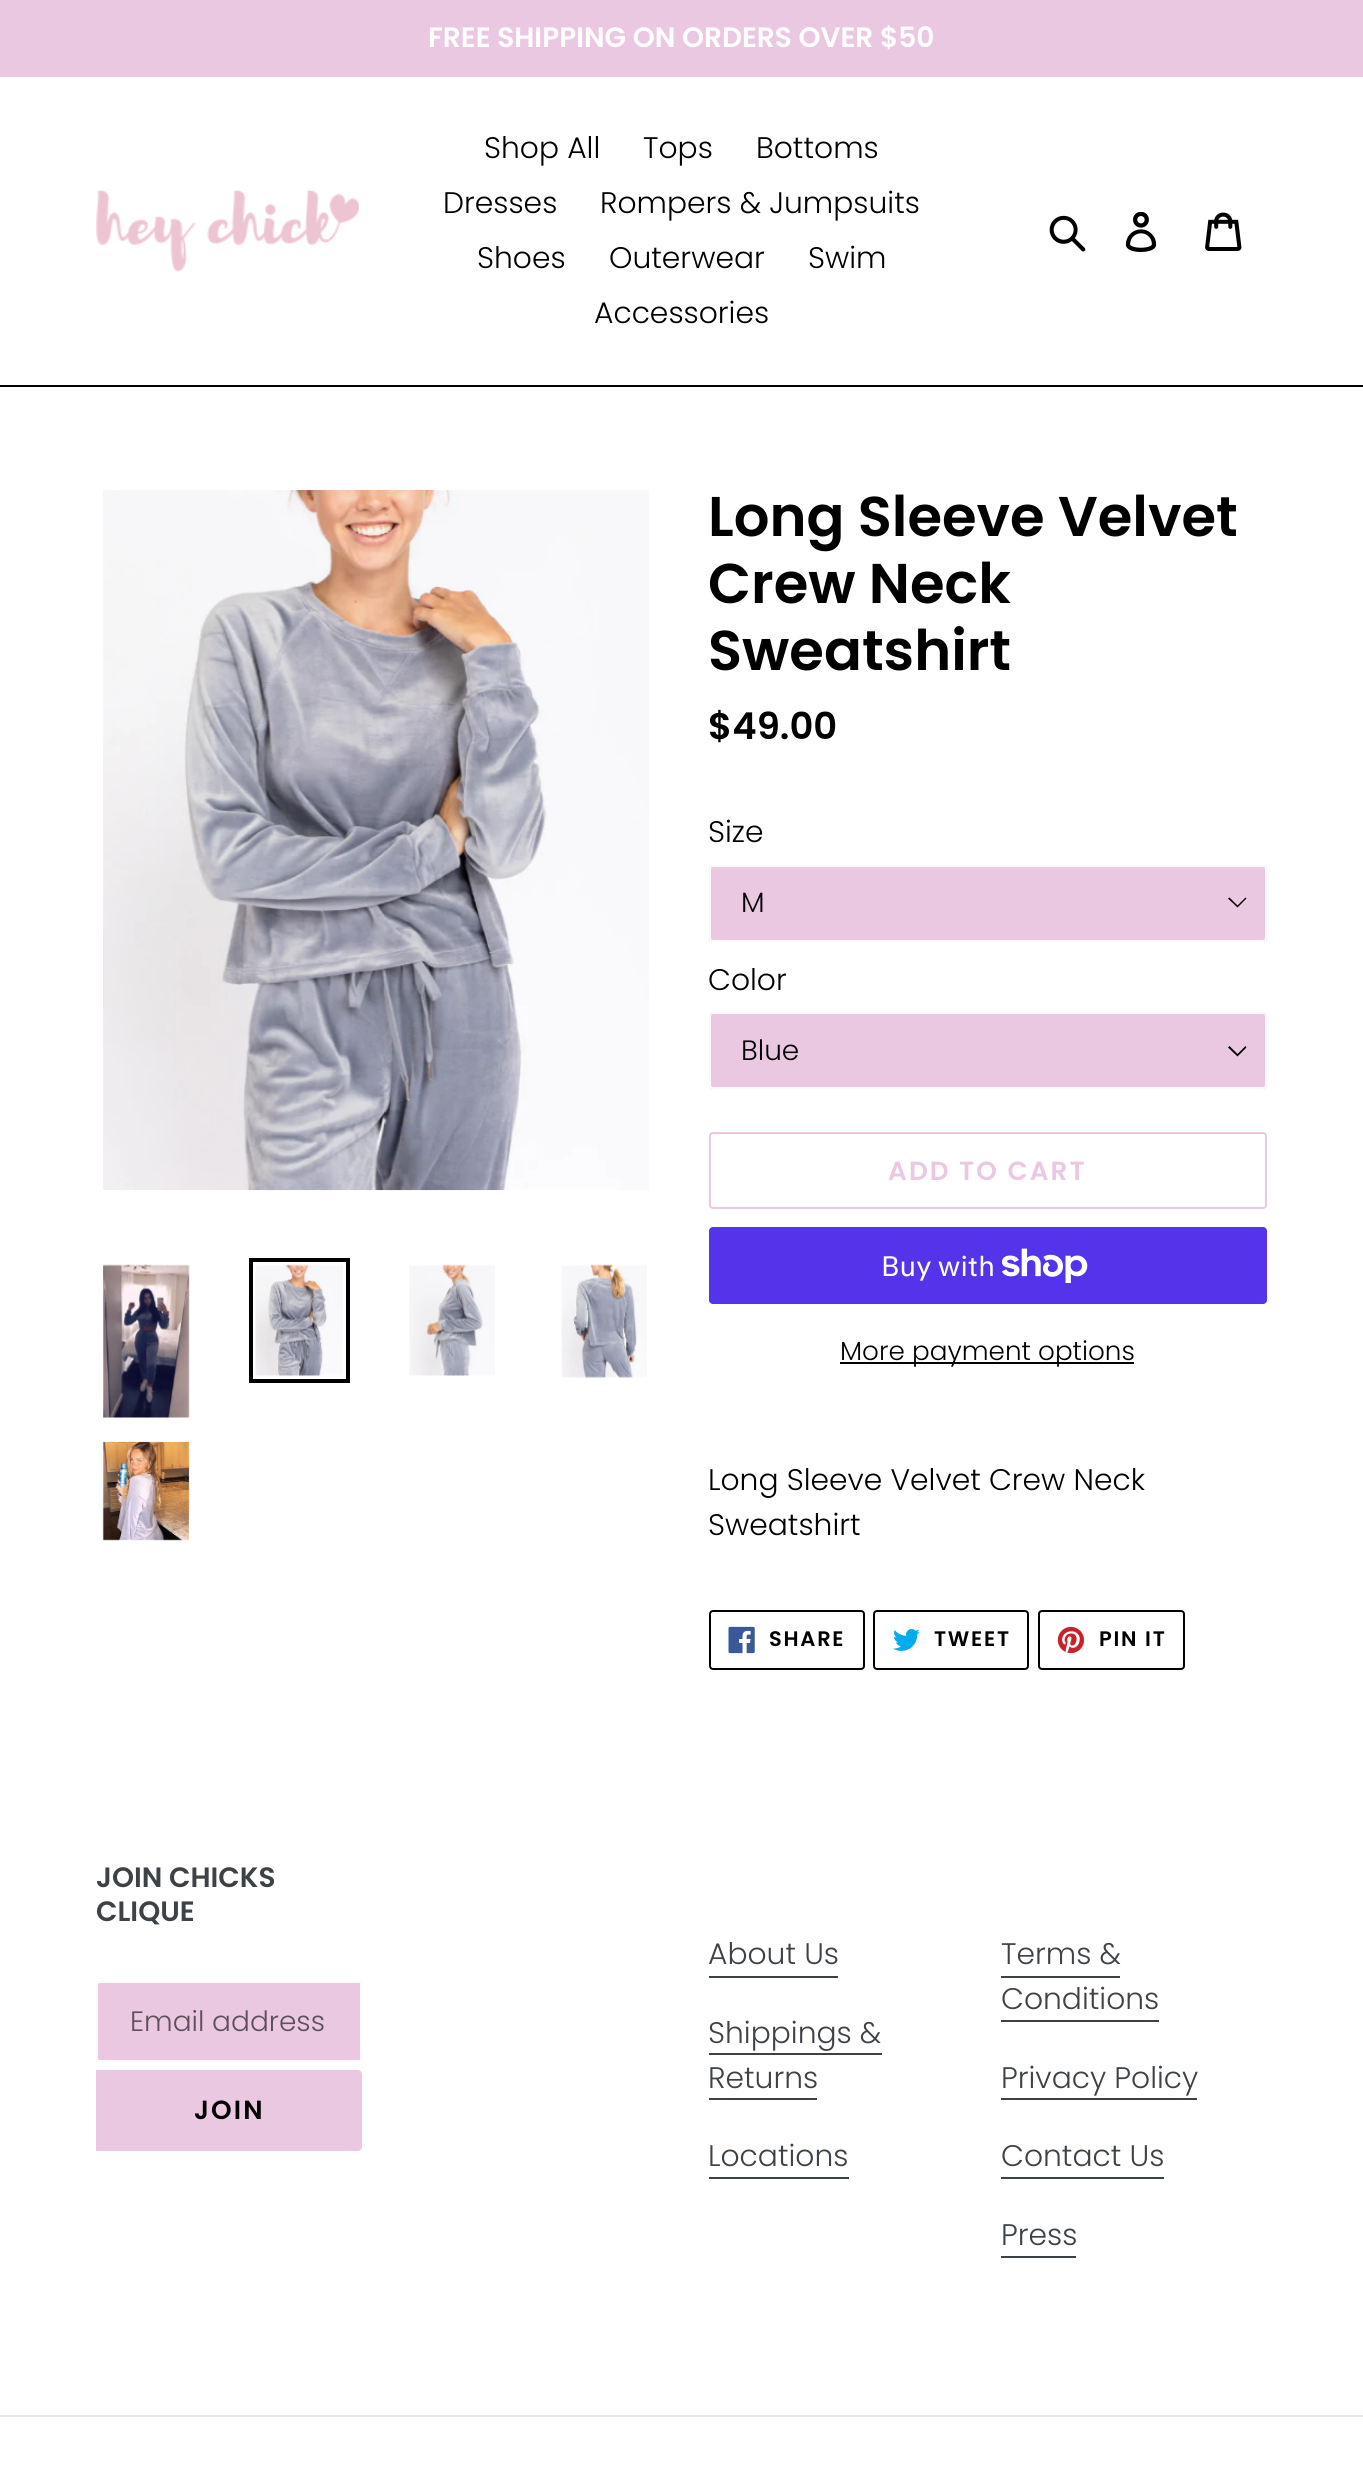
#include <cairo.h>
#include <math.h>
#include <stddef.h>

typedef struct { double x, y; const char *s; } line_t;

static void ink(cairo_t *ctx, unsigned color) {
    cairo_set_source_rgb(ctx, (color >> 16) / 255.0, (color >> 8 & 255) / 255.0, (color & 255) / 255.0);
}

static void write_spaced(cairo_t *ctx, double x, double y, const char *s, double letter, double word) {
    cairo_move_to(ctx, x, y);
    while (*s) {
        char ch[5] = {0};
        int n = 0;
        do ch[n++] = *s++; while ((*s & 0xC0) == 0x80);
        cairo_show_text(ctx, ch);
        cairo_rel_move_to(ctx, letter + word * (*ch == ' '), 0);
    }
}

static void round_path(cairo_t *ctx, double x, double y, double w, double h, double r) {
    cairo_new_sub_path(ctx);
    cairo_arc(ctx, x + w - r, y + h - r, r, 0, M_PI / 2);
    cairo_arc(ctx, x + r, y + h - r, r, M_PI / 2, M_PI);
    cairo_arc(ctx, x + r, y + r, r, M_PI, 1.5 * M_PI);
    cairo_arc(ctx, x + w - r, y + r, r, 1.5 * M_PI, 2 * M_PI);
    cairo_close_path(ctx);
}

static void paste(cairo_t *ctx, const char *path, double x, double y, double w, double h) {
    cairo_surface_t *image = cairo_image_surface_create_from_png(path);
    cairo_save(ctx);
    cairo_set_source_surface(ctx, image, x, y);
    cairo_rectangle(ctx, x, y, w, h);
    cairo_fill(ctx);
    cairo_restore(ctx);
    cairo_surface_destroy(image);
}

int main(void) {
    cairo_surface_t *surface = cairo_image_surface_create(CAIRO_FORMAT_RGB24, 1363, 2489);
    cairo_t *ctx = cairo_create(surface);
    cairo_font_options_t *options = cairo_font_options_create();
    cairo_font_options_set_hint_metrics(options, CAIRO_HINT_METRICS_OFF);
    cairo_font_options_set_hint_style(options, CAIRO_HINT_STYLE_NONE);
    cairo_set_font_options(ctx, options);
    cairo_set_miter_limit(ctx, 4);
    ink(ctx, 0xFFFFFF);
    cairo_paint(ctx);
    ink(ctx, 0xEBC8E2);
    cairo_rectangle(ctx, 0, 0, 1363, 77);
    cairo_fill(ctx);
    cairo_select_font_face(ctx, "Poppins SemiBold", CAIRO_FONT_SLANT_NORMAL, CAIRO_FONT_WEIGHT_NORMAL);
    cairo_set_font_size(ctx, 28);
    ink(ctx, 0xFFFFFF);
    cairo_move_to(ctx, 428, 47);
    cairo_show_text(ctx, "FREE SHIPPING ON ORDERS OVER $50");
    ink(ctx, 0x000000);
    cairo_rectangle(ctx, 0, 385, 1363, 2);
    cairo_fill(ctx);
    paste(ctx, "media/1.png", 96, 190, 263, 82);
    cairo_select_font_face(ctx, "Poppins Light", CAIRO_FONT_SLANT_NORMAL, CAIRO_FONT_WEIGHT_NORMAL);
    cairo_set_font_size(ctx, 29.75);
    {
        static const line_t items[] = {
            {484, 158, "Shop All"},
            {643, 158, "Tops"},
            {756, 158, "Bottoms"},
            {443, 213, "Dresses"},
            {600, 213, "Rompers & Jumpsuits"},
            {477, 268, "Shoes"},
            {609, 268, "Outerwear"},
            {808, 268, "Swim"},
            {594, 323, "Accessories"},
        };
        for (size_t i = 0; i < sizeof items / sizeof *items; i++) {
            cairo_move_to(ctx, items[i].x, items[i].y);
            cairo_show_text(ctx, items[i].s);
        }
    }
    paste(ctx, "media/2.png", 1049, 215, 37, 37);
    paste(ctx, "media/3.png", 1125, 212, 32, 40);
    paste(ctx, "media/4.png", 1205, 212, 37, 39);
    paste(ctx, "media/5.png", 103, 490, 546, 701);
    paste(ctx, "media/6.png", 103, 1264, 87, 154);
    cairo_rectangle(ctx, 251, 1260, 97, 121);
    cairo_set_line_width(ctx, 4);
    cairo_stroke(ctx);
    paste(ctx, "media/7.png", 255, 1264, 88, 112);
    paste(ctx, "media/8.png", 409, 1264, 86, 112);
    paste(ctx, "media/9.png", 561, 1264, 86, 114);
    paste(ctx, "media/10.png", 102, 1441, 88, 100);
    cairo_select_font_face(ctx, "Poppins SemiBold", CAIRO_FONT_SLANT_NORMAL, CAIRO_FONT_WEIGHT_NORMAL);
    cairo_set_font_size(ctx, 56);
    {
        static const line_t items[] = {
            {708, 536, "Long Sleeve Velvet"},
            {708, 603, "Crew Neck"},
            {708, 670, "Sweatshirt"},
        };
        for (size_t i = 0; i < sizeof items / sizeof *items; i++) {
            cairo_move_to(ctx, items[i].x, items[i].y);
            cairo_show_text(ctx, items[i].s);
        }
    }
    cairo_set_font_size(ctx, 37);
    cairo_move_to(ctx, 708, 739);
    cairo_show_text(ctx, "$49.00");
    cairo_select_font_face(ctx, "Poppins Light", CAIRO_FONT_SLANT_NORMAL, CAIRO_FONT_WEIGHT_NORMAL);
    cairo_set_font_size(ctx, 29.75);
    cairo_move_to(ctx, 708, 842);
    cairo_show_text(ctx, "Size");
    ink(ctx, 0xEBC8E2);
    round_path(ctx, 709, 865, 558, 77, 4);
    cairo_fill(ctx);
    ink(ctx, 0x000000);
    cairo_new_path(ctx);
    cairo_move_to(ctx, 1237.5, 907.5);
    cairo_line_to(ctx, 1228, 898.5);
    cairo_line_to(ctx, 1229.5, 897.5);
    cairo_line_to(ctx, 1237.5, 905.5);
    cairo_line_to(ctx, 1245.5, 897.5);
    cairo_line_to(ctx, 1246.5, 898.5);
    cairo_close_path(ctx);
    cairo_fill(ctx);
    round_path(ctx, 710, 866, 556, 75, 3);
    ink(ctx, 0xFAFAFA);
    cairo_set_line_width(ctx, 2);
    cairo_stroke(ctx);
    cairo_set_font_size(ctx, 28);
    ink(ctx, 0x000000);
    cairo_move_to(ctx, 741, 912);
    cairo_show_text(ctx, "M");
    cairo_set_font_size(ctx, 29.75);
    cairo_move_to(ctx, 708, 990);
    cairo_show_text(ctx, "Color");
    ink(ctx, 0xEBC8E2);
    round_path(ctx, 709, 1012, 558, 77, 4);
    cairo_fill(ctx);
    ink(ctx, 0x000000);
    cairo_new_path(ctx);
    cairo_move_to(ctx, 1237.5, 1056.5);
    cairo_line_to(ctx, 1228, 1047.5);
    cairo_line_to(ctx, 1229.5, 1046);
    cairo_line_to(ctx, 1237.5, 1054);
    cairo_line_to(ctx, 1245.5, 1046);
    cairo_line_to(ctx, 1246.5, 1047.5);
    cairo_close_path(ctx);
    cairo_fill(ctx);
    round_path(ctx, 710, 1013, 556, 75, 3);
    ink(ctx, 0xFAFAFA);
    cairo_stroke(ctx);
    cairo_set_font_size(ctx, 28);
    ink(ctx, 0x000000);
    cairo_move_to(ctx, 741, 1060);
    cairo_show_text(ctx, "Blue");
    round_path(ctx, 710, 1133, 556, 75, 3);
    ink(ctx, 0xEBC8E2);
    cairo_stroke(ctx);
    cairo_select_font_face(ctx, "Poppins SemiBold", CAIRO_FONT_SLANT_NORMAL, CAIRO_FONT_WEIGHT_NORMAL);
    cairo_set_font_size(ctx, 26.25);
    write_spaced(ctx, 888, 1180, "ADD TO CART", 2.1, 0);
    ink(ctx, 0x5433EB);
    round_path(ctx, 709, 1227, 558, 77, 4);
    cairo_fill(ctx);
    cairo_select_font_face(ctx, "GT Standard", CAIRO_FONT_SLANT_NORMAL, CAIRO_FONT_WEIGHT_NORMAL);
    cairo_set_font_size(ctx, 28);
    ink(ctx, 0xFFFFFF);
    cairo_move_to(ctx, 881, 1276);
    cairo_show_text(ctx, "Buy with");
    paste(ctx, "media/11.png", 1002, 1248, 86, 35);
    ink(ctx, 0x000000);
    cairo_rectangle(ctx, 840, 1362, 294, 2);
    cairo_fill(ctx);
    cairo_select_font_face(ctx, "Poppins Light", CAIRO_FONT_SLANT_NORMAL, CAIRO_FONT_WEIGHT_NORMAL);
    cairo_set_font_size(ctx, 26.25);
    cairo_move_to(ctx, 840, 1360);
    cairo_show_text(ctx, "More payment options");
    cairo_set_font_size(ctx, 29.75);
    cairo_move_to(ctx, 708, 1490);
    cairo_show_text(ctx, "Long Sleeve Velvet Crew Neck");
    cairo_move_to(ctx, 708, 1535);
    cairo_show_text(ctx, "Sweatshirt");
    round_path(ctx, 710, 1611, 154, 58, 3);
    cairo_stroke(ctx);
    paste(ctx, "media/12.png", 728, 1626, 27, 28);
    cairo_select_font_face(ctx, "Poppins SemiBold", CAIRO_FONT_SLANT_NORMAL, CAIRO_FONT_WEIGHT_NORMAL);
    cairo_set_font_size(ctx, 21);
    write_spaced(ctx, 769, 1646, "SHARE", 1.75, 0);
    round_path(ctx, 874, 1611, 154, 58, 3);
    cairo_stroke(ctx);
    paste(ctx, "media/13.png", 893, 1629, 27, 22);
    write_spaced(ctx, 934, 1646, "TWEET", 1.75, 0);
    round_path(ctx, 1039, 1611, 145, 58, 3);
    cairo_stroke(ctx);
    paste(ctx, "media/14.png", 1057, 1626, 28, 28);
    write_spaced(ctx, 1099, 1646, "PIN IT", 1.75, 0);
    cairo_set_font_size(ctx, 28);
    ink(ctx, 0x3D4246);
    cairo_move_to(ctx, 96, 1887);
    cairo_show_text(ctx, "JOIN CHICKS");
    cairo_move_to(ctx, 96, 1921);
    cairo_show_text(ctx, "CLIQUE");
    ink(ctx, 0xEBC8E2);
    cairo_new_path(ctx);
    cairo_move_to(ctx, 100, 1982);
    cairo_line_to(ctx, 361, 1982);
    cairo_line_to(ctx, 361, 2061);
    cairo_line_to(ctx, 100, 2061);
    cairo_curve_to(ctx, 98.5, 2061, 97, 2059.5, 97, 2058);
    cairo_line_to(ctx, 97, 1985);
    cairo_curve_to(ctx, 97, 1983.5, 98.5, 1982, 100, 1982);
    cairo_close_path(ctx);
    cairo_fill_preserve(ctx);
    ink(ctx, 0xFAFAFA);
    cairo_stroke(ctx);
    cairo_select_font_face(ctx, "Poppins Light", CAIRO_FONT_SLANT_NORMAL, CAIRO_FONT_WEIGHT_NORMAL);
    ink(ctx, 0x5E505A);
    cairo_move_to(ctx, 130, 2031);
    cairo_show_text(ctx, "Email address");
    ink(ctx, 0xEBC8E2);
    cairo_new_path(ctx);
    cairo_move_to(ctx, 96, 2070);
    cairo_line_to(ctx, 358, 2070);
    cairo_curve_to(ctx, 360, 2070, 362, 2072, 362, 2074);
    cairo_line_to(ctx, 362, 2147);
    cairo_curve_to(ctx, 362, 2149, 360, 2151, 358, 2151);
    cairo_line_to(ctx, 96, 2151);
    cairo_close_path(ctx);
    cairo_fill(ctx);
    cairo_select_font_face(ctx, "Poppins SemiBold", CAIRO_FONT_SLANT_NORMAL, CAIRO_FONT_WEIGHT_NORMAL);
    cairo_set_font_size(ctx, 26.25);
    ink(ctx, 0x000000);
    write_spaced(ctx, 194, 2119, "JOIN", 2.1, 0);
    cairo_select_font_face(ctx, "Poppins Light", CAIRO_FONT_SLANT_NORMAL, CAIRO_FONT_WEIGHT_NORMAL);
    cairo_set_font_size(ctx, 29.75);
    ink(ctx, 0x3D4246);
    cairo_move_to(ctx, 708, 1964);
    cairo_show_text(ctx, "About Us");
    cairo_rectangle(ctx, 709, 1976, 129, 2);
    cairo_fill(ctx);
    cairo_move_to(ctx, 708, 2043);
    cairo_show_text(ctx, "Shippings &");
    cairo_rectangle(ctx, 709, 2053, 173, 2);
    cairo_fill(ctx);
    cairo_move_to(ctx, 708, 2088);
    cairo_show_text(ctx, "Returns");
    cairo_rectangle(ctx, 709, 2098, 108, 2);
    cairo_fill(ctx);
    cairo_move_to(ctx, 708, 2166);
    cairo_show_text(ctx, "Locations");
    cairo_rectangle(ctx, 709, 2177, 140, 2);
    cairo_fill(ctx);
    cairo_move_to(ctx, 1001, 1964);
    cairo_show_text(ctx, "Terms &");
    cairo_move_to(ctx, 1001, 2009);
    cairo_show_text(ctx, "Conditions");
    cairo_rectangle(ctx, 1001, 1976, 119, 2);
    cairo_fill(ctx);
    cairo_rectangle(ctx, 1001, 2020, 158, 2);
    cairo_fill(ctx);
    cairo_move_to(ctx, 1001, 2088);
    cairo_show_text(ctx, "Privacy Policy");
    cairo_rectangle(ctx, 1001, 2098, 196, 2);
    cairo_fill(ctx);
    cairo_move_to(ctx, 1001, 2166);
    cairo_show_text(ctx, "Contact Us");
    cairo_rectangle(ctx, 1001, 2177, 163, 2);
    cairo_fill(ctx);
    cairo_move_to(ctx, 1001, 2245);
    cairo_show_text(ctx, "Press");
    cairo_rectangle(ctx, 1001, 2256, 75, 2);
    cairo_fill(ctx);
    ink(ctx, 0xE6E6E6);
    cairo_rectangle(ctx, 0, 2415, 1363, 2);
    cairo_fill(ctx);
    cairo_surface_write_to_png(surface, "image.png");
    cairo_font_options_destroy(options);
    cairo_destroy(ctx);
    cairo_surface_destroy(surface);
    return 0;
}
